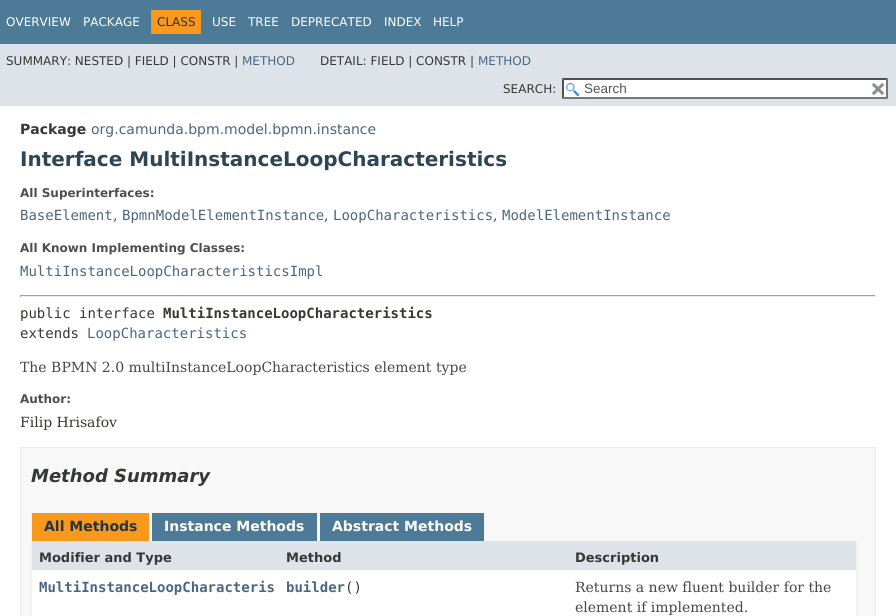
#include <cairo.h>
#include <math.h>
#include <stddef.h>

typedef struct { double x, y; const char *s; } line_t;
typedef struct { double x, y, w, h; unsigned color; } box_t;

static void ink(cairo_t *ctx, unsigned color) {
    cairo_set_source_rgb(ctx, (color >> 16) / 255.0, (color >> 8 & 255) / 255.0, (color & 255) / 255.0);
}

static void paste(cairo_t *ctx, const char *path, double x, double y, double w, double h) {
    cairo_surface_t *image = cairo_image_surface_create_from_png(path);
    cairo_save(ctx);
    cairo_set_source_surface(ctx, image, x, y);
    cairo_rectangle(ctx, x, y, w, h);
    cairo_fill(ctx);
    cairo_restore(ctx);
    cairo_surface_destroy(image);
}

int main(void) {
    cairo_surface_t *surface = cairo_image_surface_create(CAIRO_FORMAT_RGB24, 896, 616);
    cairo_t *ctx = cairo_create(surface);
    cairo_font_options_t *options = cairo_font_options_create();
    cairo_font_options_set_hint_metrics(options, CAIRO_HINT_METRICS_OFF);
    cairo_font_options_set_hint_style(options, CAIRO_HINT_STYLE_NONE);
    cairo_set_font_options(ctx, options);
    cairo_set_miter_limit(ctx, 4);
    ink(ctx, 0xFFFFFF);
    cairo_paint(ctx);
    ink(ctx, 0x4D7A97);
    cairo_rectangle(ctx, 0, 0, 896, 44);
    cairo_fill(ctx);
    cairo_select_font_face(ctx, "DejaVu Sans", CAIRO_FONT_SLANT_NORMAL, CAIRO_FONT_WEIGHT_NORMAL);
    cairo_set_font_size(ctx, 12);
    ink(ctx, 0xFFFFFF);
    cairo_move_to(ctx, 6, 26);
    cairo_show_text(ctx, "OVERVIEW");
    cairo_move_to(ctx, 83, 26);
    cairo_show_text(ctx, "PACKAGE");
    ink(ctx, 0xF8981D);
    cairo_rectangle(ctx, 151, 10, 50, 24);
    cairo_fill(ctx);
    ink(ctx, 0x253441);
    cairo_move_to(ctx, 157, 26);
    cairo_show_text(ctx, "CLASS");
    ink(ctx, 0xFFFFFF);
    {
        static const line_t items[] = {
            {212, 26, "USE"},
            {248, 26, "TREE"},
            {291, 26, "DEPRECATED"},
            {384, 26, "INDEX"},
            {433, 26, "HELP"},
        };
        for (size_t i = 0; i < sizeof items / sizeof *items; i++) {
            cairo_move_to(ctx, items[i].x, items[i].y);
            cairo_show_text(ctx, items[i].s);
        }
    }
    ink(ctx, 0xDEE3E9);
    cairo_rectangle(ctx, 0, 44, 896, 62);
    cairo_fill(ctx);
    ink(ctx, 0x353833);
    cairo_move_to(ctx, 6, 65);
    cairo_show_text(ctx, "SUMMARY: NESTED | FIELD | CONSTR |");
    ink(ctx, 0x4A6782);
    cairo_move_to(ctx, 242, 65);
    cairo_show_text(ctx, "METHOD");
    ink(ctx, 0x353833);
    cairo_move_to(ctx, 320, 65);
    cairo_show_text(ctx, "DETAIL: FIELD | CONSTR |");
    ink(ctx, 0x4A6782);
    cairo_move_to(ctx, 478, 65);
    cairo_show_text(ctx, "METHOD");
    ink(ctx, 0x353833);
    cairo_move_to(ctx, 503, 93);
    cairo_show_text(ctx, "SEARCH:");
    ink(ctx, 0xFFFFFF);
    cairo_rectangle(ctx, 562, 78, 326, 21);
    cairo_fill(ctx);
    paste(ctx, "media/1.png", 566, 83, 13, 13);
    ink(ctx, 0x4F4F4F);
    cairo_new_path(ctx);
    cairo_move_to(ctx, 562, 78);
    cairo_line_to(ctx, 888, 78);
    cairo_line_to(ctx, 886, 80);
    cairo_line_to(ctx, 564, 80);
    cairo_close_path(ctx);
    cairo_fill(ctx);
    ink(ctx, 0x767676);
    cairo_new_path(ctx);
    cairo_move_to(ctx, 888, 78);
    cairo_line_to(ctx, 888, 99);
    cairo_line_to(ctx, 886, 97);
    cairo_line_to(ctx, 886, 80);
    cairo_close_path(ctx);
    cairo_fill(ctx);
    cairo_new_path(ctx);
    cairo_move_to(ctx, 888, 99);
    cairo_line_to(ctx, 562, 99);
    cairo_line_to(ctx, 564, 97);
    cairo_line_to(ctx, 886, 97);
    cairo_close_path(ctx);
    cairo_fill(ctx);
    ink(ctx, 0x4F4F4F);
    cairo_new_path(ctx);
    cairo_move_to(ctx, 562, 99);
    cairo_line_to(ctx, 562, 78);
    cairo_line_to(ctx, 564, 80);
    cairo_line_to(ctx, 564, 97);
    cairo_close_path(ctx);
    cairo_fill(ctx);
    cairo_select_font_face(ctx, "Liberation Sans", CAIRO_FONT_SLANT_NORMAL, CAIRO_FONT_WEIGHT_NORMAL);
    cairo_set_font_size(ctx, 13.5);
    ink(ctx, 0x545454);
    cairo_move_to(ctx, 584, 93);
    cairo_show_text(ctx, "Search");
    paste(ctx, "media/2.png", 871, 83, 14, 12);
    cairo_select_font_face(ctx, "DejaVu Sans", CAIRO_FONT_SLANT_NORMAL, CAIRO_FONT_WEIGHT_BOLD);
    cairo_set_font_size(ctx, 14);
    ink(ctx, 0x353833);
    cairo_move_to(ctx, 20, 134);
    cairo_show_text(ctx, "Package");
    cairo_select_font_face(ctx, "DejaVu Sans", CAIRO_FONT_SLANT_NORMAL, CAIRO_FONT_WEIGHT_NORMAL);
    ink(ctx, 0x4A6782);
    cairo_move_to(ctx, 91, 134);
    cairo_show_text(ctx, "org.camunda.bpm.model.bpmn.instance");
    cairo_select_font_face(ctx, "DejaVu Sans", CAIRO_FONT_SLANT_NORMAL, CAIRO_FONT_WEIGHT_BOLD);
    cairo_set_font_size(ctx, 20);
    ink(ctx, 0x2C4557);
    cairo_move_to(ctx, 20, 166);
    cairo_show_text(ctx, "Interface MultiInstanceLoopCharacteristics");
    cairo_set_font_size(ctx, 12);
    ink(ctx, 0x4E4E4E);
    cairo_move_to(ctx, 20, 197);
    cairo_show_text(ctx, "All Superinterfaces:");
    cairo_select_font_face(ctx, "DejaVu Sans Mono", CAIRO_FONT_SLANT_NORMAL, CAIRO_FONT_WEIGHT_NORMAL);
    cairo_set_font_size(ctx, 14);
    ink(ctx, 0x4A6782);
    cairo_move_to(ctx, 20, 220);
    cairo_show_text(ctx, "BaseElement");
    cairo_select_font_face(ctx, "DejaVu Serif", CAIRO_FONT_SLANT_NORMAL, CAIRO_FONT_WEIGHT_NORMAL);
    ink(ctx, 0x353833);
    cairo_move_to(ctx, 113, 220);
    cairo_show_text(ctx, ",");
    cairo_select_font_face(ctx, "DejaVu Sans Mono", CAIRO_FONT_SLANT_NORMAL, CAIRO_FONT_WEIGHT_NORMAL);
    ink(ctx, 0x4A6782);
    cairo_move_to(ctx, 122, 220);
    cairo_show_text(ctx, "BpmnModelElementInstance");
    cairo_select_font_face(ctx, "DejaVu Serif", CAIRO_FONT_SLANT_NORMAL, CAIRO_FONT_WEIGHT_NORMAL);
    ink(ctx, 0x353833);
    cairo_move_to(ctx, 324, 220);
    cairo_show_text(ctx, ",");
    cairo_select_font_face(ctx, "DejaVu Sans Mono", CAIRO_FONT_SLANT_NORMAL, CAIRO_FONT_WEIGHT_NORMAL);
    ink(ctx, 0x4A6782);
    cairo_move_to(ctx, 333, 220);
    cairo_show_text(ctx, "LoopCharacteristics");
    cairo_select_font_face(ctx, "DejaVu Serif", CAIRO_FONT_SLANT_NORMAL, CAIRO_FONT_WEIGHT_NORMAL);
    ink(ctx, 0x353833);
    cairo_move_to(ctx, 493, 220);
    cairo_show_text(ctx, ",");
    cairo_select_font_face(ctx, "DejaVu Sans Mono", CAIRO_FONT_SLANT_NORMAL, CAIRO_FONT_WEIGHT_NORMAL);
    ink(ctx, 0x4A6782);
    cairo_move_to(ctx, 502, 220);
    cairo_show_text(ctx, "ModelElementInstance");
    cairo_select_font_face(ctx, "DejaVu Sans", CAIRO_FONT_SLANT_NORMAL, CAIRO_FONT_WEIGHT_BOLD);
    cairo_set_font_size(ctx, 12);
    ink(ctx, 0x4E4E4E);
    cairo_move_to(ctx, 20, 252);
    cairo_show_text(ctx, "All Known Implementing Classes:");
    cairo_select_font_face(ctx, "DejaVu Sans Mono", CAIRO_FONT_SLANT_NORMAL, CAIRO_FONT_WEIGHT_NORMAL);
    cairo_set_font_size(ctx, 14);
    ink(ctx, 0x4A6782);
    cairo_move_to(ctx, 20, 276);
    cairo_show_text(ctx, "MultiInstanceLoopCharacteristicsImpl");
    {
        static const box_t items[] = {
            {20, 295, 856, 1, 0x9F9F9F},
            {875, 295, 1, 2, 0xEEEEEE},
            {20, 296, 856, 1, 0xEEEEEE},
            {20, 295, 1, 2, 0x9F9F9F},
        };
        for (size_t i = 0; i < sizeof items / sizeof *items; i++) {
            ink(ctx, items[i].color);
            cairo_rectangle(ctx, items[i].x, items[i].y, items[i].w, items[i].h);
            cairo_fill(ctx);
        }
    }
    ink(ctx, 0x353833);
    cairo_move_to(ctx, 20, 318);
    cairo_show_text(ctx, "public interface");
    cairo_select_font_face(ctx, "DejaVu Sans Mono", CAIRO_FONT_SLANT_NORMAL, CAIRO_FONT_WEIGHT_BOLD);
    cairo_move_to(ctx, 163, 318);
    cairo_show_text(ctx, "MultiInstanceLoopCharacteristics");
    cairo_select_font_face(ctx, "DejaVu Sans Mono", CAIRO_FONT_SLANT_NORMAL, CAIRO_FONT_WEIGHT_NORMAL);
    cairo_move_to(ctx, 20, 338);
    cairo_show_text(ctx, "extends");
    ink(ctx, 0x4A6782);
    cairo_move_to(ctx, 87, 338);
    cairo_show_text(ctx, "LoopCharacteristics");
    cairo_select_font_face(ctx, "DejaVu Serif", CAIRO_FONT_SLANT_NORMAL, CAIRO_FONT_WEIGHT_NORMAL);
    ink(ctx, 0x474747);
    cairo_move_to(ctx, 20, 372);
    cairo_show_text(ctx, "The BPMN 2.0 multiInstanceLoopCharacteristics element type");
    cairo_select_font_face(ctx, "DejaVu Sans", CAIRO_FONT_SLANT_NORMAL, CAIRO_FONT_WEIGHT_BOLD);
    cairo_set_font_size(ctx, 12);
    ink(ctx, 0x4E4E4E);
    cairo_move_to(ctx, 20, 403);
    cairo_show_text(ctx, "Author:");
    cairo_select_font_face(ctx, "DejaVu Serif", CAIRO_FONT_SLANT_NORMAL, CAIRO_FONT_WEIGHT_NORMAL);
    cairo_set_font_size(ctx, 14);
    ink(ctx, 0x353833);
    cairo_move_to(ctx, 20, 427);
    cairo_show_text(ctx, "Filip Hrisafov");
    ink(ctx, 0xF8F8F8);
    cairo_rectangle(ctx, 20.5, 447.5, 855, 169);
    cairo_fill_preserve(ctx);
    ink(ctx, 0xEDEDED);
    cairo_set_line_width(ctx, 1);
    cairo_stroke(ctx);
    cairo_select_font_face(ctx, "DejaVu Sans", CAIRO_FONT_SLANT_ITALIC, CAIRO_FONT_WEIGHT_BOLD);
    cairo_set_font_size(ctx, 18);
    ink(ctx, 0x353833);
    cairo_move_to(ctx, 31, 482);
    cairo_show_text(ctx, "Method Summary");
    ink(ctx, 0xF8981D);
    cairo_rectangle(ctx, 32, 513, 117, 28);
    cairo_fill(ctx);
    cairo_select_font_face(ctx, "DejaVu Sans", CAIRO_FONT_SLANT_NORMAL, CAIRO_FONT_WEIGHT_BOLD);
    cairo_set_font_size(ctx, 14);
    ink(ctx, 0x253441);
    cairo_move_to(ctx, 44, 531);
    cairo_show_text(ctx, "All Methods");
    ink(ctx, 0x4D7A97);
    cairo_rectangle(ctx, 152, 513, 165, 28);
    cairo_fill(ctx);
    ink(ctx, 0xFFFFFF);
    cairo_move_to(ctx, 164, 531);
    cairo_show_text(ctx, "Instance Methods");
    ink(ctx, 0x4D7A97);
    cairo_rectangle(ctx, 320, 513, 164, 28);
    cairo_fill(ctx);
    ink(ctx, 0xFFFFFF);
    cairo_move_to(ctx, 332, 531);
    cairo_show_text(ctx, "Abstract Methods");
    {
        static const box_t items[] = {
            {856, 541, 1, 75, 0xEEEEEE},
            {31, 541, 1, 75, 0xEEEEEE},
            {32, 541, 536, 29, 0xDEE3E9},
        };
        for (size_t i = 0; i < sizeof items / sizeof *items; i++) {
            ink(ctx, items[i].color);
            cairo_rectangle(ctx, items[i].x, items[i].y, items[i].w, items[i].h);
            cairo_fill(ctx);
        }
    }
    cairo_set_font_size(ctx, 13);
    ink(ctx, 0x353833);
    cairo_move_to(ctx, 39, 562);
    cairo_show_text(ctx, "Modifier and Type");
    cairo_move_to(ctx, 286, 562);
    cairo_show_text(ctx, "Method");
    ink(ctx, 0xDEE3E9);
    cairo_rectangle(ctx, 568, 541, 288, 29);
    cairo_fill(ctx);
    ink(ctx, 0x353833);
    cairo_move_to(ctx, 575, 562);
    cairo_show_text(ctx, "Description");
    ink(ctx, 0xFFFFFF);
    cairo_rectangle(ctx, 32, 570, 536, 46);
    cairo_fill(ctx);
    cairo_select_font_face(ctx, "DejaVu Sans Mono", CAIRO_FONT_SLANT_NORMAL, CAIRO_FONT_WEIGHT_BOLD);
    cairo_set_font_size(ctx, 14);
    ink(ctx, 0x4A6782);
    cairo_move_to(ctx, 39, 592);
    cairo_show_text(ctx, "MultiInstanceLoopCharacteris");
    cairo_move_to(ctx, 286, 592);
    cairo_show_text(ctx, "builder");
    cairo_select_font_face(ctx, "DejaVu Sans Mono", CAIRO_FONT_SLANT_NORMAL, CAIRO_FONT_WEIGHT_NORMAL);
    ink(ctx, 0x353833);
    cairo_move_to(ctx, 345, 592);
    cairo_show_text(ctx, "()");
    ink(ctx, 0xFFFFFF);
    cairo_rectangle(ctx, 568, 570, 288, 46);
    cairo_fill(ctx);
    cairo_select_font_face(ctx, "DejaVu Serif", CAIRO_FONT_SLANT_NORMAL, CAIRO_FONT_WEIGHT_NORMAL);
    ink(ctx, 0x474747);
    cairo_move_to(ctx, 575, 592);
    cairo_show_text(ctx, "Returns a new fluent builder for the");
    cairo_move_to(ctx, 575, 612);
    cairo_show_text(ctx, "element if implemented.");
    cairo_surface_write_to_png(surface, "image.png");
    cairo_font_options_destroy(options);
    cairo_destroy(ctx);
    cairo_surface_destroy(surface);
    return 0;
}
